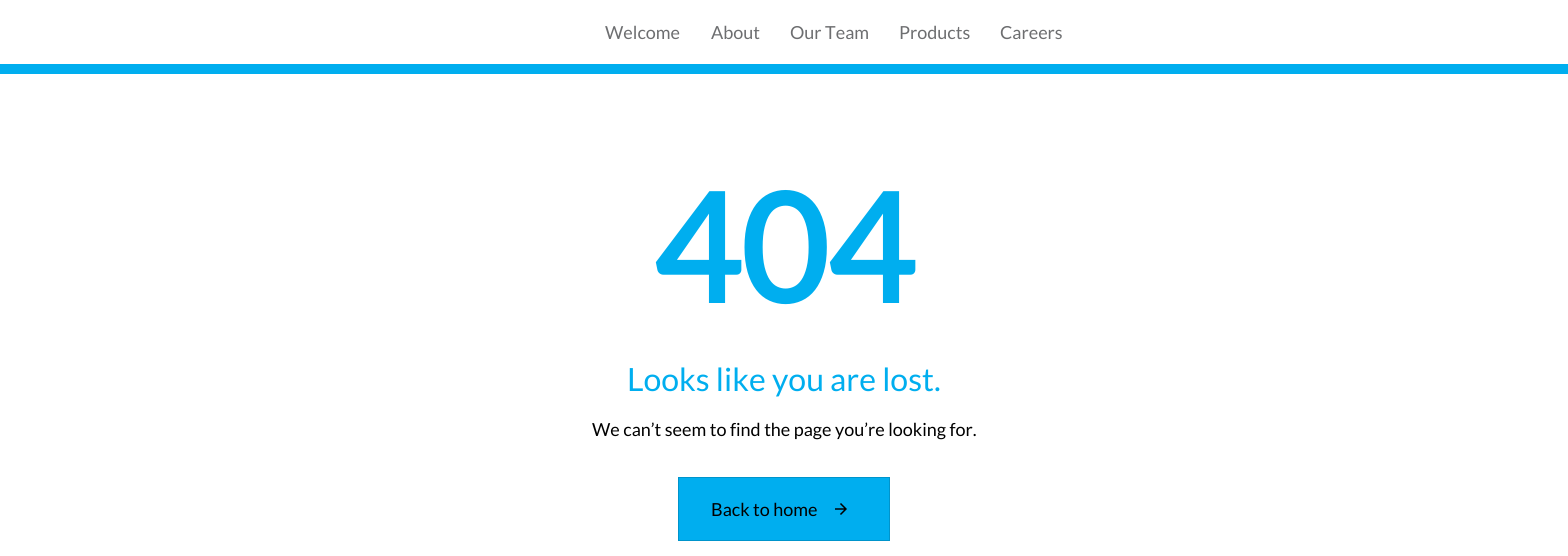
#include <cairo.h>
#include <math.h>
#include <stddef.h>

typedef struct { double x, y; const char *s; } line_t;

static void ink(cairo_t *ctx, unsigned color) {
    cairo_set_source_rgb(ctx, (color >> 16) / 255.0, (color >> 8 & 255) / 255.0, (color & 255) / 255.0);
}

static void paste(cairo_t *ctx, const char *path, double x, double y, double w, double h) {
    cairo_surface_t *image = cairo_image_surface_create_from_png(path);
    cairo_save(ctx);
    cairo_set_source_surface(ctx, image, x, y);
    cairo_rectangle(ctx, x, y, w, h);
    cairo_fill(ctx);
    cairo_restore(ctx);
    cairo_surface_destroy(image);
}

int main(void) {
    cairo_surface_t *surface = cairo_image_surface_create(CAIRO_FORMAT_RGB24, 1568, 556);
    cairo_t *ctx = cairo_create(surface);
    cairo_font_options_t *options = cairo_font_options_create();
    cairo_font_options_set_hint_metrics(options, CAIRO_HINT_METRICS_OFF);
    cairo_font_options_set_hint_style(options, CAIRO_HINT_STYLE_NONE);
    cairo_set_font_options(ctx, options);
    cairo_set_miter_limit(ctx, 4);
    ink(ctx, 0xFFFFFF);
    cairo_paint(ctx);
    cairo_select_font_face(ctx, "Lato", CAIRO_FONT_SLANT_NORMAL, CAIRO_FONT_WEIGHT_NORMAL);
    cairo_set_font_size(ctx, 18);
    ink(ctx, 0x6D6E70);
    {
        static const line_t items[] = {
            {605, 39, "Welcome"},
            {711, 39, "About"},
            {790, 39, "Our Team"},
            {899, 39, "Products"},
            {1000, 39, "Careers"},
        };
        for (size_t i = 0; i < sizeof items / sizeof *items; i++) {
            cairo_move_to(ctx, items[i].x, items[i].y);
            cairo_show_text(ctx, items[i].s);
        }
    }
    ink(ctx, 0x00AEEF);
    cairo_rectangle(ctx, 0, 64, 1568, 10);
    cairo_fill(ctx);
    cairo_select_font_face(ctx, "Lato", CAIRO_FONT_SLANT_NORMAL, CAIRO_FONT_WEIGHT_BOLD);
    cairo_set_font_size(ctx, 150);
    cairo_move_to(ctx, 653, 303);
    cairo_show_text(ctx, "404");
    cairo_select_font_face(ctx, "Lato", CAIRO_FONT_SLANT_NORMAL, CAIRO_FONT_WEIGHT_NORMAL);
    cairo_set_font_size(ctx, 32);
    cairo_move_to(ctx, 627, 391);
    cairo_show_text(ctx, "Looks like you are lost.");
    cairo_set_font_size(ctx, 18);
    ink(ctx, 0x000000);
    cairo_move_to(ctx, 592, 436);
    cairo_show_text(ctx, "We can’t seem to find the page you’re looking for.");
    ink(ctx, 0x00AEEF);
    cairo_rectangle(ctx, 678.5, 477.5, 211, 63);
    cairo_fill_preserve(ctx);
    ink(ctx, 0x0094CB);
    cairo_set_line_width(ctx, 1);
    cairo_stroke(ctx);
    ink(ctx, 0x000000);
    cairo_move_to(ctx, 711, 516);
    cairo_show_text(ctx, "Back to home");
    paste(ctx, "media/1.png", 835, 503, 12, 12);
    cairo_surface_write_to_png(surface, "image.png");
    cairo_font_options_destroy(options);
    cairo_destroy(ctx);
    cairo_surface_destroy(surface);
    return 0;
}
